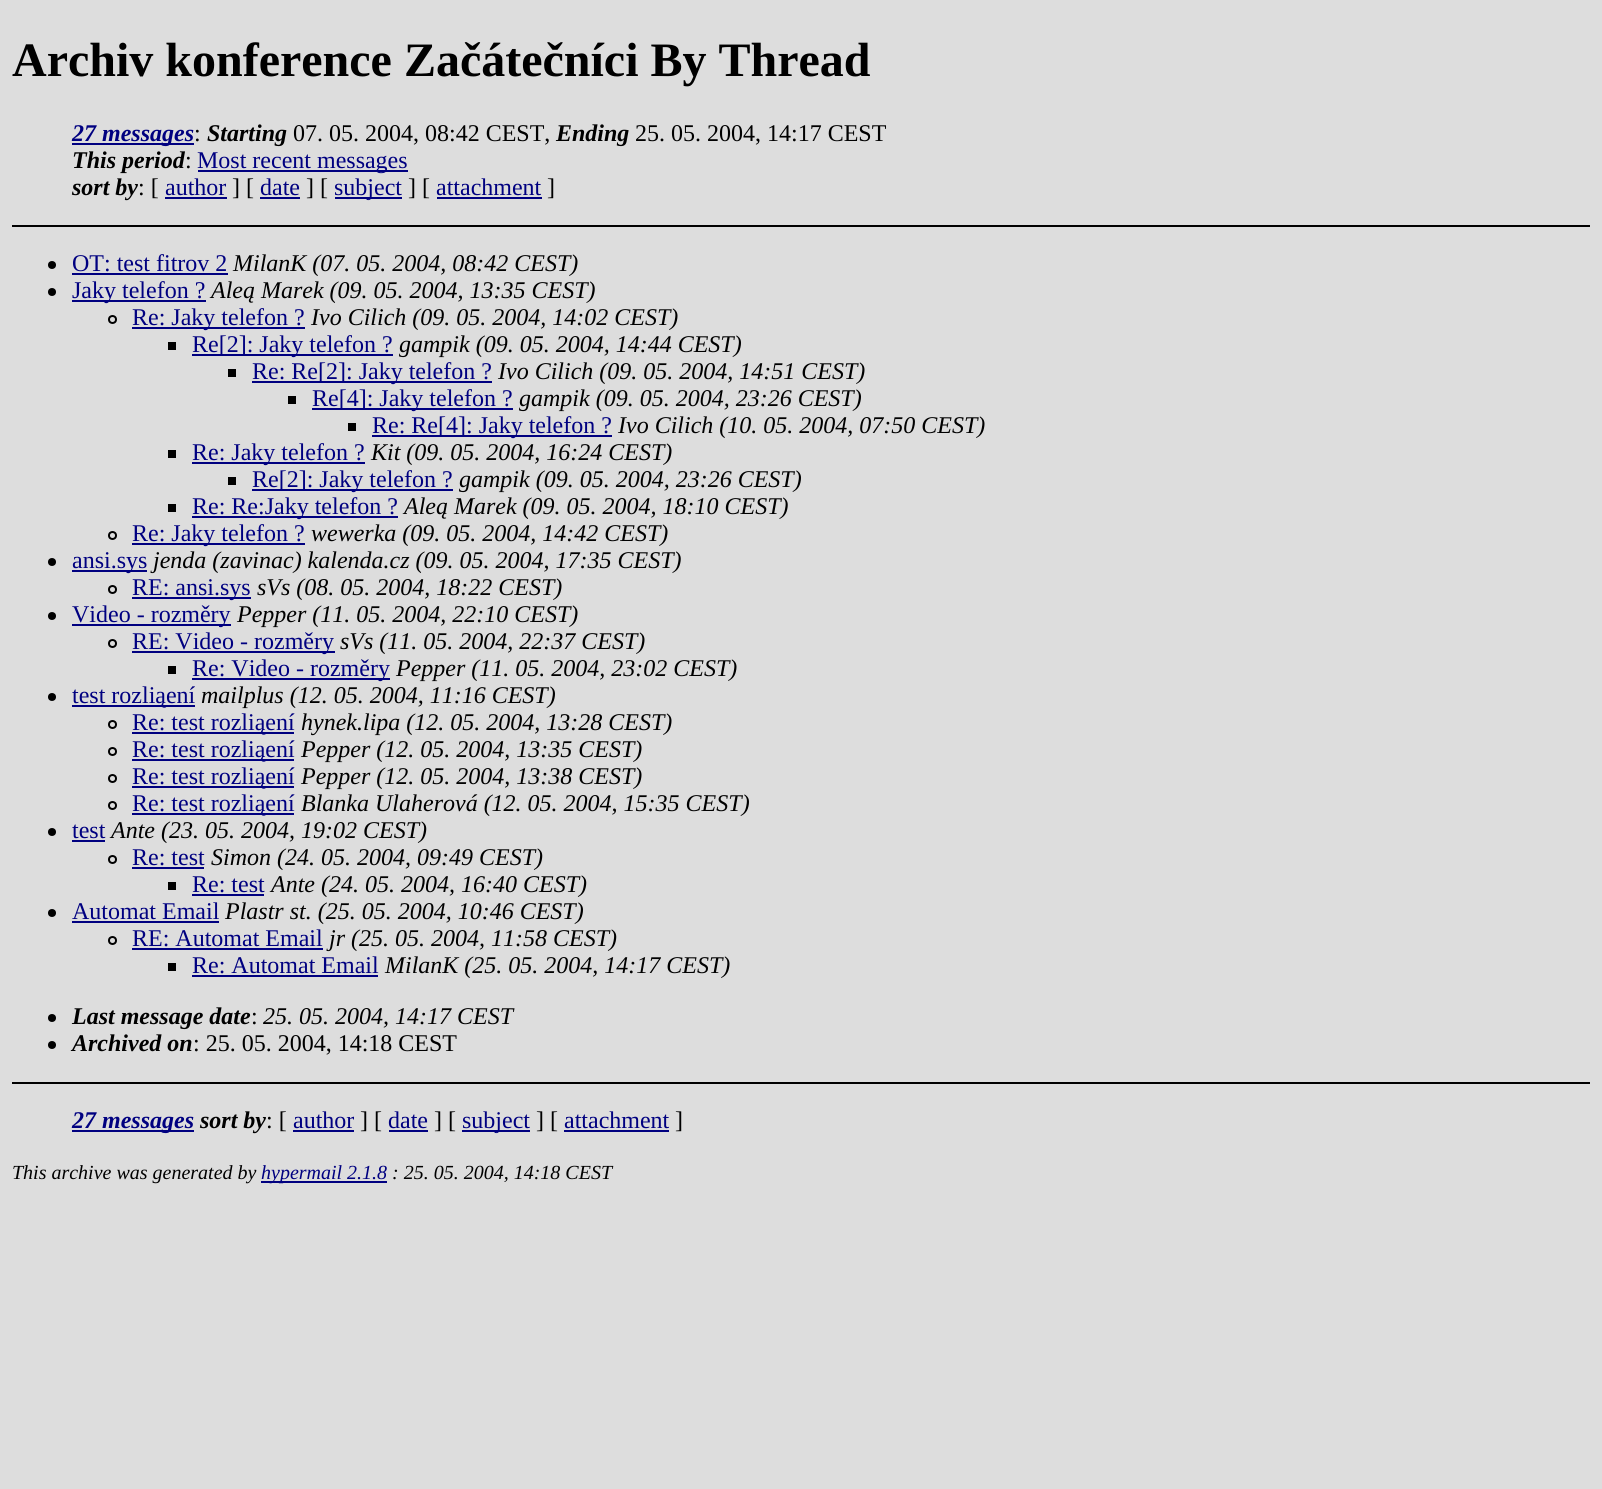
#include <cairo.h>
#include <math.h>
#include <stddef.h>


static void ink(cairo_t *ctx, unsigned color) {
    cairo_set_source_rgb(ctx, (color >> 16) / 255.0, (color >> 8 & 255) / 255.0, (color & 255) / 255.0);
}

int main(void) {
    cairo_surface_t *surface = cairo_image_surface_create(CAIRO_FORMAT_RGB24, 1602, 1489);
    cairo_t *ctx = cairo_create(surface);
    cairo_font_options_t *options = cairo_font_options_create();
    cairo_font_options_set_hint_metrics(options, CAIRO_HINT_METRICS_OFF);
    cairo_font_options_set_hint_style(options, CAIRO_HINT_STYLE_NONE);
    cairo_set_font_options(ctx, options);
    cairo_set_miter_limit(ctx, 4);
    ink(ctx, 0xDDDDDD);
    cairo_paint(ctx);
    ink(ctx, 0x000000);
    cairo_rectangle(ctx, 12, 225, 1578, 2);
    cairo_fill(ctx);
    cairo_select_font_face(ctx, "Liberation Serif", CAIRO_FONT_SLANT_NORMAL, CAIRO_FONT_WEIGHT_BOLD);
    cairo_set_font_size(ctx, 48);
    cairo_move_to(ctx, 12, 76);
    cairo_show_text(ctx, "Archiv konference Začátečníci By Thread");
    ink(ctx, 0x000080);
    cairo_rectangle(ctx, 72, 143, 122, 2);
    cairo_fill(ctx);
    cairo_select_font_face(ctx, "Liberation Serif", CAIRO_FONT_SLANT_ITALIC, CAIRO_FONT_WEIGHT_BOLD);
    cairo_set_font_size(ctx, 24);
    cairo_move_to(ctx, 72, 141);
    cairo_show_text(ctx, "27 messages");
    cairo_select_font_face(ctx, "Liberation Serif", CAIRO_FONT_SLANT_NORMAL, CAIRO_FONT_WEIGHT_NORMAL);
    ink(ctx, 0x000000);
    cairo_move_to(ctx, 194, 141);
    cairo_show_text(ctx, ":");
    cairo_select_font_face(ctx, "Liberation Serif", CAIRO_FONT_SLANT_ITALIC, CAIRO_FONT_WEIGHT_BOLD);
    cairo_move_to(ctx, 207, 141);
    cairo_show_text(ctx, "Starting");
    cairo_select_font_face(ctx, "Liberation Serif", CAIRO_FONT_SLANT_NORMAL, CAIRO_FONT_WEIGHT_NORMAL);
    cairo_move_to(ctx, 293, 141);
    cairo_show_text(ctx, "07. 05. 2004, 08:42 CEST,");
    cairo_select_font_face(ctx, "Liberation Serif", CAIRO_FONT_SLANT_ITALIC, CAIRO_FONT_WEIGHT_BOLD);
    cairo_move_to(ctx, 556, 141);
    cairo_show_text(ctx, "Ending");
    cairo_select_font_face(ctx, "Liberation Serif", CAIRO_FONT_SLANT_NORMAL, CAIRO_FONT_WEIGHT_NORMAL);
    cairo_move_to(ctx, 635, 141);
    cairo_show_text(ctx, "25. 05. 2004, 14:17 CEST");
    cairo_select_font_face(ctx, "Liberation Serif", CAIRO_FONT_SLANT_ITALIC, CAIRO_FONT_WEIGHT_BOLD);
    cairo_move_to(ctx, 72, 168);
    cairo_show_text(ctx, "This period");
    cairo_select_font_face(ctx, "Liberation Serif", CAIRO_FONT_SLANT_NORMAL, CAIRO_FONT_WEIGHT_NORMAL);
    cairo_move_to(ctx, 185, 168);
    cairo_show_text(ctx, ":");
    ink(ctx, 0x000080);
    cairo_rectangle(ctx, 198, 170, 210, 2);
    cairo_fill(ctx);
    cairo_move_to(ctx, 197, 168);
    cairo_show_text(ctx, "Most recent messages");
    cairo_select_font_face(ctx, "Liberation Serif", CAIRO_FONT_SLANT_ITALIC, CAIRO_FONT_WEIGHT_BOLD);
    ink(ctx, 0x000000);
    cairo_move_to(ctx, 72, 195);
    cairo_show_text(ctx, "sort by");
    cairo_select_font_face(ctx, "Liberation Serif", CAIRO_FONT_SLANT_NORMAL, CAIRO_FONT_WEIGHT_NORMAL);
    cairo_move_to(ctx, 138, 195);
    cairo_show_text(ctx, ": [");
    ink(ctx, 0x000080);
    cairo_move_to(ctx, 165, 195);
    cairo_show_text(ctx, "author");
    cairo_rectangle(ctx, 165, 197, 62, 2);
    cairo_fill(ctx);
    ink(ctx, 0x000000);
    cairo_move_to(ctx, 232, 195);
    cairo_show_text(ctx, "] [");
    ink(ctx, 0x000080);
    cairo_move_to(ctx, 260, 195);
    cairo_show_text(ctx, "date");
    cairo_rectangle(ctx, 260, 197, 40, 2);
    cairo_fill(ctx);
    ink(ctx, 0x000000);
    cairo_move_to(ctx, 306, 195);
    cairo_show_text(ctx, "] [");
    ink(ctx, 0x000080);
    cairo_rectangle(ctx, 335, 197, 67, 2);
    cairo_fill(ctx);
    cairo_move_to(ctx, 334, 195);
    cairo_show_text(ctx, "subject");
    ink(ctx, 0x000000);
    cairo_move_to(ctx, 408, 195);
    cairo_show_text(ctx, "] [");
    ink(ctx, 0x000080);
    cairo_move_to(ctx, 436, 195);
    cairo_show_text(ctx, "attachment");
    cairo_rectangle(ctx, 437, 197, 105, 2);
    cairo_fill(ctx);
    ink(ctx, 0x000000);
    cairo_move_to(ctx, 547, 195);
    cairo_show_text(ctx, "]");
    cairo_new_path(ctx);
    cairo_arc(ctx, 52, 265, 4, 0, 2 * M_PI);
    cairo_fill(ctx);
    ink(ctx, 0x000080);
    cairo_move_to(ctx, 72, 271);
    cairo_show_text(ctx, "OT: test fitrov 2");
    cairo_rectangle(ctx, 72, 273, 156, 2);
    cairo_fill(ctx);
    cairo_select_font_face(ctx, "Liberation Serif", CAIRO_FONT_SLANT_ITALIC, CAIRO_FONT_WEIGHT_NORMAL);
    ink(ctx, 0x000000);
    cairo_move_to(ctx, 233, 271);
    cairo_show_text(ctx, "MilanK (07. 05. 2004, 08:42 CEST)");
    cairo_new_path(ctx);
    cairo_arc(ctx, 52, 292, 4, 0, 2 * M_PI);
    cairo_fill(ctx);
    ink(ctx, 0x000080);
    cairo_rectangle(ctx, 72, 300, 134, 2);
    cairo_fill(ctx);
    cairo_select_font_face(ctx, "Liberation Serif", CAIRO_FONT_SLANT_NORMAL, CAIRO_FONT_WEIGHT_NORMAL);
    cairo_move_to(ctx, 72, 298);
    cairo_show_text(ctx, "Jaky telefon ?");
    cairo_select_font_face(ctx, "Liberation Serif", CAIRO_FONT_SLANT_ITALIC, CAIRO_FONT_WEIGHT_NORMAL);
    ink(ctx, 0x000000);
    cairo_move_to(ctx, 211, 298);
    cairo_show_text(ctx, "Aleą Marek (09. 05. 2004, 13:35 CEST)");
    cairo_new_path(ctx);
    cairo_arc(ctx, 112.5, 319.5, 3.5, 0, 2 * M_PI);
    cairo_stroke(ctx);
    ink(ctx, 0x000080);
    cairo_rectangle(ctx, 132, 327, 173, 2);
    cairo_fill(ctx);
    cairo_select_font_face(ctx, "Liberation Serif", CAIRO_FONT_SLANT_NORMAL, CAIRO_FONT_WEIGHT_NORMAL);
    cairo_move_to(ctx, 132, 325);
    cairo_show_text(ctx, "Re: Jaky telefon ?");
    cairo_select_font_face(ctx, "Liberation Serif", CAIRO_FONT_SLANT_ITALIC, CAIRO_FONT_WEIGHT_NORMAL);
    ink(ctx, 0x000000);
    cairo_move_to(ctx, 311, 325);
    cairo_show_text(ctx, "Ivo Cilich (09. 05. 2004, 14:02 CEST)");
    cairo_rectangle(ctx, 168, 342, 8, 8);
    cairo_fill(ctx);
    ink(ctx, 0x000080);
    cairo_rectangle(ctx, 192, 354, 201, 2);
    cairo_fill(ctx);
    cairo_select_font_face(ctx, "Liberation Serif", CAIRO_FONT_SLANT_NORMAL, CAIRO_FONT_WEIGHT_NORMAL);
    cairo_move_to(ctx, 192, 352);
    cairo_show_text(ctx, "Re[2]: Jaky telefon ?");
    cairo_select_font_face(ctx, "Liberation Serif", CAIRO_FONT_SLANT_ITALIC, CAIRO_FONT_WEIGHT_NORMAL);
    ink(ctx, 0x000000);
    cairo_move_to(ctx, 399, 352);
    cairo_show_text(ctx, "gampik (09. 05. 2004, 14:44 CEST)");
    cairo_rectangle(ctx, 228, 369, 8, 8);
    cairo_fill(ctx);
    ink(ctx, 0x000080);
    cairo_rectangle(ctx, 252, 381, 240, 2);
    cairo_fill(ctx);
    cairo_select_font_face(ctx, "Liberation Serif", CAIRO_FONT_SLANT_NORMAL, CAIRO_FONT_WEIGHT_NORMAL);
    cairo_move_to(ctx, 252, 379);
    cairo_show_text(ctx, "Re: Re[2]: Jaky telefon ?");
    cairo_select_font_face(ctx, "Liberation Serif", CAIRO_FONT_SLANT_ITALIC, CAIRO_FONT_WEIGHT_NORMAL);
    ink(ctx, 0x000000);
    cairo_move_to(ctx, 498, 379);
    cairo_show_text(ctx, "Ivo Cilich (09. 05. 2004, 14:51 CEST)");
    cairo_rectangle(ctx, 288, 396, 8, 8);
    cairo_fill(ctx);
    ink(ctx, 0x000080);
    cairo_rectangle(ctx, 312, 408, 201, 2);
    cairo_fill(ctx);
    cairo_select_font_face(ctx, "Liberation Serif", CAIRO_FONT_SLANT_NORMAL, CAIRO_FONT_WEIGHT_NORMAL);
    cairo_move_to(ctx, 312, 406);
    cairo_show_text(ctx, "Re[4]: Jaky telefon ?");
    cairo_select_font_face(ctx, "Liberation Serif", CAIRO_FONT_SLANT_ITALIC, CAIRO_FONT_WEIGHT_NORMAL);
    ink(ctx, 0x000000);
    cairo_move_to(ctx, 519, 406);
    cairo_show_text(ctx, "gampik (09. 05. 2004, 23:26 CEST)");
    cairo_rectangle(ctx, 348, 423, 8, 8);
    cairo_fill(ctx);
    ink(ctx, 0x000080);
    cairo_rectangle(ctx, 372, 435, 240, 2);
    cairo_fill(ctx);
    cairo_select_font_face(ctx, "Liberation Serif", CAIRO_FONT_SLANT_NORMAL, CAIRO_FONT_WEIGHT_NORMAL);
    cairo_move_to(ctx, 372, 433);
    cairo_show_text(ctx, "Re: Re[4]: Jaky telefon ?");
    cairo_select_font_face(ctx, "Liberation Serif", CAIRO_FONT_SLANT_ITALIC, CAIRO_FONT_WEIGHT_NORMAL);
    ink(ctx, 0x000000);
    cairo_move_to(ctx, 618, 433);
    cairo_show_text(ctx, "Ivo Cilich (10. 05. 2004, 07:50 CEST)");
    cairo_rectangle(ctx, 168, 450, 8, 8);
    cairo_fill(ctx);
    ink(ctx, 0x000080);
    cairo_rectangle(ctx, 192, 462, 173, 2);
    cairo_fill(ctx);
    cairo_select_font_face(ctx, "Liberation Serif", CAIRO_FONT_SLANT_NORMAL, CAIRO_FONT_WEIGHT_NORMAL);
    cairo_move_to(ctx, 192, 460);
    cairo_show_text(ctx, "Re: Jaky telefon ?");
    cairo_select_font_face(ctx, "Liberation Serif", CAIRO_FONT_SLANT_ITALIC, CAIRO_FONT_WEIGHT_NORMAL);
    ink(ctx, 0x000000);
    cairo_move_to(ctx, 371, 460);
    cairo_show_text(ctx, "Kit (09. 05. 2004, 16:24 CEST)");
    cairo_rectangle(ctx, 228, 477, 8, 8);
    cairo_fill(ctx);
    ink(ctx, 0x000080);
    cairo_rectangle(ctx, 252, 489, 201, 2);
    cairo_fill(ctx);
    cairo_select_font_face(ctx, "Liberation Serif", CAIRO_FONT_SLANT_NORMAL, CAIRO_FONT_WEIGHT_NORMAL);
    cairo_move_to(ctx, 252, 487);
    cairo_show_text(ctx, "Re[2]: Jaky telefon ?");
    cairo_select_font_face(ctx, "Liberation Serif", CAIRO_FONT_SLANT_ITALIC, CAIRO_FONT_WEIGHT_NORMAL);
    ink(ctx, 0x000000);
    cairo_move_to(ctx, 459, 487);
    cairo_show_text(ctx, "gampik (09. 05. 2004, 23:26 CEST)");
    cairo_rectangle(ctx, 168, 504, 8, 8);
    cairo_fill(ctx);
    ink(ctx, 0x000080);
    cairo_rectangle(ctx, 192, 516, 206, 2);
    cairo_fill(ctx);
    cairo_select_font_face(ctx, "Liberation Serif", CAIRO_FONT_SLANT_NORMAL, CAIRO_FONT_WEIGHT_NORMAL);
    cairo_move_to(ctx, 192, 514);
    cairo_show_text(ctx, "Re: Re:Jaky telefon ?");
    cairo_select_font_face(ctx, "Liberation Serif", CAIRO_FONT_SLANT_ITALIC, CAIRO_FONT_WEIGHT_NORMAL);
    ink(ctx, 0x000000);
    cairo_move_to(ctx, 404, 514);
    cairo_show_text(ctx, "Aleą Marek (09. 05. 2004, 18:10 CEST)");
    cairo_new_path(ctx);
    cairo_arc(ctx, 112.5, 535.5, 3.5, 0, 2 * M_PI);
    cairo_stroke(ctx);
    ink(ctx, 0x000080);
    cairo_rectangle(ctx, 132, 543, 173, 2);
    cairo_fill(ctx);
    cairo_select_font_face(ctx, "Liberation Serif", CAIRO_FONT_SLANT_NORMAL, CAIRO_FONT_WEIGHT_NORMAL);
    cairo_move_to(ctx, 132, 541);
    cairo_show_text(ctx, "Re: Jaky telefon ?");
    cairo_select_font_face(ctx, "Liberation Serif", CAIRO_FONT_SLANT_ITALIC, CAIRO_FONT_WEIGHT_NORMAL);
    ink(ctx, 0x000000);
    cairo_move_to(ctx, 311, 541);
    cairo_show_text(ctx, "wewerka (09. 05. 2004, 14:42 CEST)");
    cairo_new_path(ctx);
    cairo_arc(ctx, 52, 562, 4, 0, 2 * M_PI);
    cairo_fill(ctx);
    ink(ctx, 0x000080);
    cairo_rectangle(ctx, 72, 570, 75, 2);
    cairo_fill(ctx);
    cairo_select_font_face(ctx, "Liberation Serif", CAIRO_FONT_SLANT_NORMAL, CAIRO_FONT_WEIGHT_NORMAL);
    cairo_move_to(ctx, 72, 568);
    cairo_show_text(ctx, "ansi.sys");
    cairo_select_font_face(ctx, "Liberation Serif", CAIRO_FONT_SLANT_ITALIC, CAIRO_FONT_WEIGHT_NORMAL);
    ink(ctx, 0x000000);
    cairo_move_to(ctx, 153, 568);
    cairo_show_text(ctx, "jenda (zavinac) kalenda.cz (09. 05. 2004, 17:35 CEST)");
    cairo_new_path(ctx);
    cairo_arc(ctx, 112.5, 589.5, 3.5, 0, 2 * M_PI);
    cairo_stroke(ctx);
    ink(ctx, 0x000080);
    cairo_rectangle(ctx, 132, 597, 119, 2);
    cairo_fill(ctx);
    cairo_select_font_face(ctx, "Liberation Serif", CAIRO_FONT_SLANT_NORMAL, CAIRO_FONT_WEIGHT_NORMAL);
    cairo_move_to(ctx, 132, 595);
    cairo_show_text(ctx, "RE: ansi.sys");
    cairo_select_font_face(ctx, "Liberation Serif", CAIRO_FONT_SLANT_ITALIC, CAIRO_FONT_WEIGHT_NORMAL);
    ink(ctx, 0x000000);
    cairo_move_to(ctx, 257, 595);
    cairo_show_text(ctx, "sVs (08. 05. 2004, 18:22 CEST)");
    cairo_new_path(ctx);
    cairo_arc(ctx, 52, 616, 4, 0, 2 * M_PI);
    cairo_fill(ctx);
    ink(ctx, 0x000080);
    cairo_rectangle(ctx, 72, 624, 159, 2);
    cairo_fill(ctx);
    cairo_select_font_face(ctx, "Liberation Serif", CAIRO_FONT_SLANT_NORMAL, CAIRO_FONT_WEIGHT_NORMAL);
    cairo_move_to(ctx, 72, 622);
    cairo_show_text(ctx, "Video - rozměry");
    cairo_select_font_face(ctx, "Liberation Serif", CAIRO_FONT_SLANT_ITALIC, CAIRO_FONT_WEIGHT_NORMAL);
    ink(ctx, 0x000000);
    cairo_move_to(ctx, 237, 622);
    cairo_show_text(ctx, "Pepper (11. 05. 2004, 22:10 CEST)");
    cairo_new_path(ctx);
    cairo_arc(ctx, 112.5, 643.5, 3.5, 0, 2 * M_PI);
    cairo_stroke(ctx);
    ink(ctx, 0x000080);
    cairo_rectangle(ctx, 132, 651, 203, 2);
    cairo_fill(ctx);
    cairo_select_font_face(ctx, "Liberation Serif", CAIRO_FONT_SLANT_NORMAL, CAIRO_FONT_WEIGHT_NORMAL);
    cairo_move_to(ctx, 132, 649);
    cairo_show_text(ctx, "RE: Video - rozměry");
    cairo_select_font_face(ctx, "Liberation Serif", CAIRO_FONT_SLANT_ITALIC, CAIRO_FONT_WEIGHT_NORMAL);
    ink(ctx, 0x000000);
    cairo_move_to(ctx, 340, 649);
    cairo_show_text(ctx, "sVs (11. 05. 2004, 22:37 CEST)");
    cairo_rectangle(ctx, 168, 666, 8, 8);
    cairo_fill(ctx);
    ink(ctx, 0x000080);
    cairo_rectangle(ctx, 192, 678, 198, 2);
    cairo_fill(ctx);
    cairo_select_font_face(ctx, "Liberation Serif", CAIRO_FONT_SLANT_NORMAL, CAIRO_FONT_WEIGHT_NORMAL);
    cairo_move_to(ctx, 192, 676);
    cairo_show_text(ctx, "Re: Video - rozměry");
    cairo_select_font_face(ctx, "Liberation Serif", CAIRO_FONT_SLANT_ITALIC, CAIRO_FONT_WEIGHT_NORMAL);
    ink(ctx, 0x000000);
    cairo_move_to(ctx, 396, 676);
    cairo_show_text(ctx, "Pepper (11. 05. 2004, 23:02 CEST)");
    cairo_new_path(ctx);
    cairo_arc(ctx, 52, 697, 4, 0, 2 * M_PI);
    cairo_fill(ctx);
    ink(ctx, 0x000080);
    cairo_rectangle(ctx, 72, 705, 123, 2);
    cairo_fill(ctx);
    cairo_select_font_face(ctx, "Liberation Serif", CAIRO_FONT_SLANT_NORMAL, CAIRO_FONT_WEIGHT_NORMAL);
    cairo_move_to(ctx, 72, 703);
    cairo_show_text(ctx, "test rozliąení");
    cairo_select_font_face(ctx, "Liberation Serif", CAIRO_FONT_SLANT_ITALIC, CAIRO_FONT_WEIGHT_NORMAL);
    ink(ctx, 0x000000);
    cairo_move_to(ctx, 201, 703);
    cairo_show_text(ctx, "mailplus (12. 05. 2004, 11:16 CEST)");
    cairo_new_path(ctx);
    cairo_arc(ctx, 112.5, 724.5, 3.5, 0, 2 * M_PI);
    cairo_stroke(ctx);
    ink(ctx, 0x000080);
    cairo_rectangle(ctx, 132, 732, 162, 2);
    cairo_fill(ctx);
    cairo_select_font_face(ctx, "Liberation Serif", CAIRO_FONT_SLANT_NORMAL, CAIRO_FONT_WEIGHT_NORMAL);
    cairo_move_to(ctx, 132, 730);
    cairo_show_text(ctx, "Re: test rozliąení");
    cairo_select_font_face(ctx, "Liberation Serif", CAIRO_FONT_SLANT_ITALIC, CAIRO_FONT_WEIGHT_NORMAL);
    ink(ctx, 0x000000);
    cairo_move_to(ctx, 301, 730);
    cairo_show_text(ctx, "hynek.lipa (12. 05. 2004, 13:28 CEST)");
    cairo_new_path(ctx);
    cairo_arc(ctx, 112.5, 751.5, 3.5, 0, 2 * M_PI);
    cairo_stroke(ctx);
    ink(ctx, 0x000080);
    cairo_rectangle(ctx, 132, 759, 162, 2);
    cairo_fill(ctx);
    cairo_select_font_face(ctx, "Liberation Serif", CAIRO_FONT_SLANT_NORMAL, CAIRO_FONT_WEIGHT_NORMAL);
    cairo_move_to(ctx, 132, 757);
    cairo_show_text(ctx, "Re: test rozliąení");
    cairo_select_font_face(ctx, "Liberation Serif", CAIRO_FONT_SLANT_ITALIC, CAIRO_FONT_WEIGHT_NORMAL);
    ink(ctx, 0x000000);
    cairo_move_to(ctx, 301, 757);
    cairo_show_text(ctx, "Pepper (12. 05. 2004, 13:35 CEST)");
    cairo_new_path(ctx);
    cairo_arc(ctx, 112.5, 778.5, 3.5, 0, 2 * M_PI);
    cairo_stroke(ctx);
    ink(ctx, 0x000080);
    cairo_rectangle(ctx, 132, 786, 162, 2);
    cairo_fill(ctx);
    cairo_select_font_face(ctx, "Liberation Serif", CAIRO_FONT_SLANT_NORMAL, CAIRO_FONT_WEIGHT_NORMAL);
    cairo_move_to(ctx, 132, 784);
    cairo_show_text(ctx, "Re: test rozliąení");
    cairo_select_font_face(ctx, "Liberation Serif", CAIRO_FONT_SLANT_ITALIC, CAIRO_FONT_WEIGHT_NORMAL);
    ink(ctx, 0x000000);
    cairo_move_to(ctx, 301, 784);
    cairo_show_text(ctx, "Pepper (12. 05. 2004, 13:38 CEST)");
    cairo_new_path(ctx);
    cairo_arc(ctx, 112.5, 805.5, 3.5, 0, 2 * M_PI);
    cairo_stroke(ctx);
    ink(ctx, 0x000080);
    cairo_rectangle(ctx, 132, 813, 162, 2);
    cairo_fill(ctx);
    cairo_select_font_face(ctx, "Liberation Serif", CAIRO_FONT_SLANT_NORMAL, CAIRO_FONT_WEIGHT_NORMAL);
    cairo_move_to(ctx, 132, 811);
    cairo_show_text(ctx, "Re: test rozliąení");
    cairo_select_font_face(ctx, "Liberation Serif", CAIRO_FONT_SLANT_ITALIC, CAIRO_FONT_WEIGHT_NORMAL);
    ink(ctx, 0x000000);
    cairo_move_to(ctx, 301, 811);
    cairo_show_text(ctx, "Blanka Ulaherová (12. 05. 2004, 15:35 CEST)");
    cairo_new_path(ctx);
    cairo_arc(ctx, 52, 832, 4, 0, 2 * M_PI);
    cairo_fill(ctx);
    cairo_select_font_face(ctx, "Liberation Serif", CAIRO_FONT_SLANT_NORMAL, CAIRO_FONT_WEIGHT_NORMAL);
    ink(ctx, 0x000080);
    cairo_move_to(ctx, 72, 838);
    cairo_show_text(ctx, "test");
    cairo_rectangle(ctx, 72, 840, 33, 2);
    cairo_fill(ctx);
    cairo_select_font_face(ctx, "Liberation Serif", CAIRO_FONT_SLANT_ITALIC, CAIRO_FONT_WEIGHT_NORMAL);
    ink(ctx, 0x000000);
    cairo_move_to(ctx, 111, 838);
    cairo_show_text(ctx, "Ante (23. 05. 2004, 19:02 CEST)");
    cairo_new_path(ctx);
    cairo_arc(ctx, 112.5, 859.5, 3.5, 0, 2 * M_PI);
    cairo_stroke(ctx);
    cairo_select_font_face(ctx, "Liberation Serif", CAIRO_FONT_SLANT_NORMAL, CAIRO_FONT_WEIGHT_NORMAL);
    ink(ctx, 0x000080);
    cairo_move_to(ctx, 132, 865);
    cairo_show_text(ctx, "Re: test");
    cairo_rectangle(ctx, 132, 867, 72, 2);
    cairo_fill(ctx);
    cairo_select_font_face(ctx, "Liberation Serif", CAIRO_FONT_SLANT_ITALIC, CAIRO_FONT_WEIGHT_NORMAL);
    ink(ctx, 0x000000);
    cairo_move_to(ctx, 211, 865);
    cairo_show_text(ctx, "Simon (24. 05. 2004, 09:49 CEST)");
    cairo_rectangle(ctx, 168, 882, 8, 8);
    cairo_fill(ctx);
    cairo_select_font_face(ctx, "Liberation Serif", CAIRO_FONT_SLANT_NORMAL, CAIRO_FONT_WEIGHT_NORMAL);
    ink(ctx, 0x000080);
    cairo_move_to(ctx, 192, 892);
    cairo_show_text(ctx, "Re: test");
    cairo_rectangle(ctx, 192, 894, 72, 2);
    cairo_fill(ctx);
    cairo_select_font_face(ctx, "Liberation Serif", CAIRO_FONT_SLANT_ITALIC, CAIRO_FONT_WEIGHT_NORMAL);
    ink(ctx, 0x000000);
    cairo_move_to(ctx, 271, 892);
    cairo_show_text(ctx, "Ante (24. 05. 2004, 16:40 CEST)");
    cairo_new_path(ctx);
    cairo_arc(ctx, 52, 913, 4, 0, 2 * M_PI);
    cairo_fill(ctx);
    cairo_select_font_face(ctx, "Liberation Serif", CAIRO_FONT_SLANT_NORMAL, CAIRO_FONT_WEIGHT_NORMAL);
    ink(ctx, 0x000080);
    cairo_move_to(ctx, 72, 919);
    cairo_show_text(ctx, "Automat Email");
    cairo_rectangle(ctx, 72, 921, 147, 2);
    cairo_fill(ctx);
    cairo_select_font_face(ctx, "Liberation Serif", CAIRO_FONT_SLANT_ITALIC, CAIRO_FONT_WEIGHT_NORMAL);
    ink(ctx, 0x000000);
    cairo_move_to(ctx, 225, 919);
    cairo_show_text(ctx, "Plastr st. (25. 05. 2004, 10:46 CEST)");
    cairo_new_path(ctx);
    cairo_arc(ctx, 112.5, 940.5, 3.5, 0, 2 * M_PI);
    cairo_stroke(ctx);
    cairo_select_font_face(ctx, "Liberation Serif", CAIRO_FONT_SLANT_NORMAL, CAIRO_FONT_WEIGHT_NORMAL);
    ink(ctx, 0x000080);
    cairo_move_to(ctx, 132, 946);
    cairo_show_text(ctx, "RE: Automat Email");
    cairo_rectangle(ctx, 132, 948, 191, 2);
    cairo_fill(ctx);
    cairo_select_font_face(ctx, "Liberation Serif", CAIRO_FONT_SLANT_ITALIC, CAIRO_FONT_WEIGHT_NORMAL);
    ink(ctx, 0x000000);
    cairo_move_to(ctx, 329, 946);
    cairo_show_text(ctx, "jr (25. 05. 2004, 11:58 CEST)");
    cairo_rectangle(ctx, 168, 963, 8, 8);
    cairo_fill(ctx);
    cairo_select_font_face(ctx, "Liberation Serif", CAIRO_FONT_SLANT_NORMAL, CAIRO_FONT_WEIGHT_NORMAL);
    ink(ctx, 0x000080);
    cairo_move_to(ctx, 192, 973);
    cairo_show_text(ctx, "Re: Automat Email");
    cairo_rectangle(ctx, 192, 975, 186, 2);
    cairo_fill(ctx);
    cairo_select_font_face(ctx, "Liberation Serif", CAIRO_FONT_SLANT_ITALIC, CAIRO_FONT_WEIGHT_NORMAL);
    ink(ctx, 0x000000);
    cairo_move_to(ctx, 385, 973);
    cairo_show_text(ctx, "MilanK (25. 05. 2004, 14:17 CEST)");
    cairo_new_path(ctx);
    cairo_arc(ctx, 52, 1018, 4, 0, 2 * M_PI);
    cairo_fill(ctx);
    cairo_select_font_face(ctx, "Liberation Serif", CAIRO_FONT_SLANT_ITALIC, CAIRO_FONT_WEIGHT_BOLD);
    cairo_move_to(ctx, 72, 1024);
    cairo_show_text(ctx, "Last message date");
    cairo_select_font_face(ctx, "Liberation Serif", CAIRO_FONT_SLANT_NORMAL, CAIRO_FONT_WEIGHT_NORMAL);
    cairo_move_to(ctx, 251, 1024);
    cairo_show_text(ctx, ":");
    cairo_select_font_face(ctx, "Liberation Serif", CAIRO_FONT_SLANT_ITALIC, CAIRO_FONT_WEIGHT_NORMAL);
    cairo_move_to(ctx, 263, 1024);
    cairo_show_text(ctx, "25. 05. 2004, 14:17 CEST");
    cairo_new_path(ctx);
    cairo_arc(ctx, 52, 1045, 4, 0, 2 * M_PI);
    cairo_fill(ctx);
    cairo_select_font_face(ctx, "Liberation Serif", CAIRO_FONT_SLANT_ITALIC, CAIRO_FONT_WEIGHT_BOLD);
    cairo_move_to(ctx, 72, 1051);
    cairo_show_text(ctx, "Archived on");
    cairo_select_font_face(ctx, "Liberation Serif", CAIRO_FONT_SLANT_NORMAL, CAIRO_FONT_WEIGHT_NORMAL);
    cairo_move_to(ctx, 193, 1051);
    cairo_show_text(ctx, ": 25. 05. 2004, 14:18 CEST");
    cairo_rectangle(ctx, 12, 1082, 1578, 2);
    cairo_fill(ctx);
    ink(ctx, 0x000080);
    cairo_rectangle(ctx, 72, 1130, 122, 2);
    cairo_fill(ctx);
    cairo_select_font_face(ctx, "Liberation Serif", CAIRO_FONT_SLANT_ITALIC, CAIRO_FONT_WEIGHT_BOLD);
    cairo_move_to(ctx, 72, 1128);
    cairo_show_text(ctx, "27 messages");
    ink(ctx, 0x000000);
    cairo_move_to(ctx, 200, 1128);
    cairo_show_text(ctx, "sort by");
    cairo_select_font_face(ctx, "Liberation Serif", CAIRO_FONT_SLANT_NORMAL, CAIRO_FONT_WEIGHT_NORMAL);
    cairo_move_to(ctx, 266, 1128);
    cairo_show_text(ctx, ": [");
    ink(ctx, 0x000080);
    cairo_move_to(ctx, 293, 1128);
    cairo_show_text(ctx, "author");
    cairo_rectangle(ctx, 293, 1130, 61, 2);
    cairo_fill(ctx);
    ink(ctx, 0x000000);
    cairo_move_to(ctx, 360, 1128);
    cairo_show_text(ctx, "] [");
    ink(ctx, 0x000080);
    cairo_move_to(ctx, 388, 1128);
    cairo_show_text(ctx, "date");
    cairo_rectangle(ctx, 389, 1130, 39, 2);
    cairo_fill(ctx);
    ink(ctx, 0x000000);
    cairo_move_to(ctx, 434, 1128);
    cairo_show_text(ctx, "] [");
    ink(ctx, 0x000080);
    cairo_rectangle(ctx, 462, 1130, 68, 2);
    cairo_fill(ctx);
    cairo_move_to(ctx, 462, 1128);
    cairo_show_text(ctx, "subject");
    ink(ctx, 0x000000);
    cairo_move_to(ctx, 536, 1128);
    cairo_show_text(ctx, "] [");
    ink(ctx, 0x000080);
    cairo_move_to(ctx, 564, 1128);
    cairo_show_text(ctx, "attachment");
    cairo_rectangle(ctx, 564, 1130, 105, 2);
    cairo_fill(ctx);
    ink(ctx, 0x000000);
    cairo_move_to(ctx, 675, 1128);
    cairo_show_text(ctx, "]");
    cairo_select_font_face(ctx, "Liberation Serif", CAIRO_FONT_SLANT_ITALIC, CAIRO_FONT_WEIGHT_NORMAL);
    cairo_set_font_size(ctx, 20);
    cairo_move_to(ctx, 12, 1179);
    cairo_show_text(ctx, "This archive was generated by");
    ink(ctx, 0x000080);
    cairo_rectangle(ctx, 261, 1181, 126, 2);
    cairo_fill(ctx);
    cairo_move_to(ctx, 261, 1179);
    cairo_show_text(ctx, "hypermail 2.1.8");
    ink(ctx, 0x000000);
    cairo_move_to(ctx, 392, 1179);
    cairo_show_text(ctx, ": 25. 05. 2004, 14:18 CEST");
    cairo_surface_write_to_png(surface, "image.png");
    cairo_font_options_destroy(options);
    cairo_destroy(ctx);
    cairo_surface_destroy(surface);
    return 0;
}
